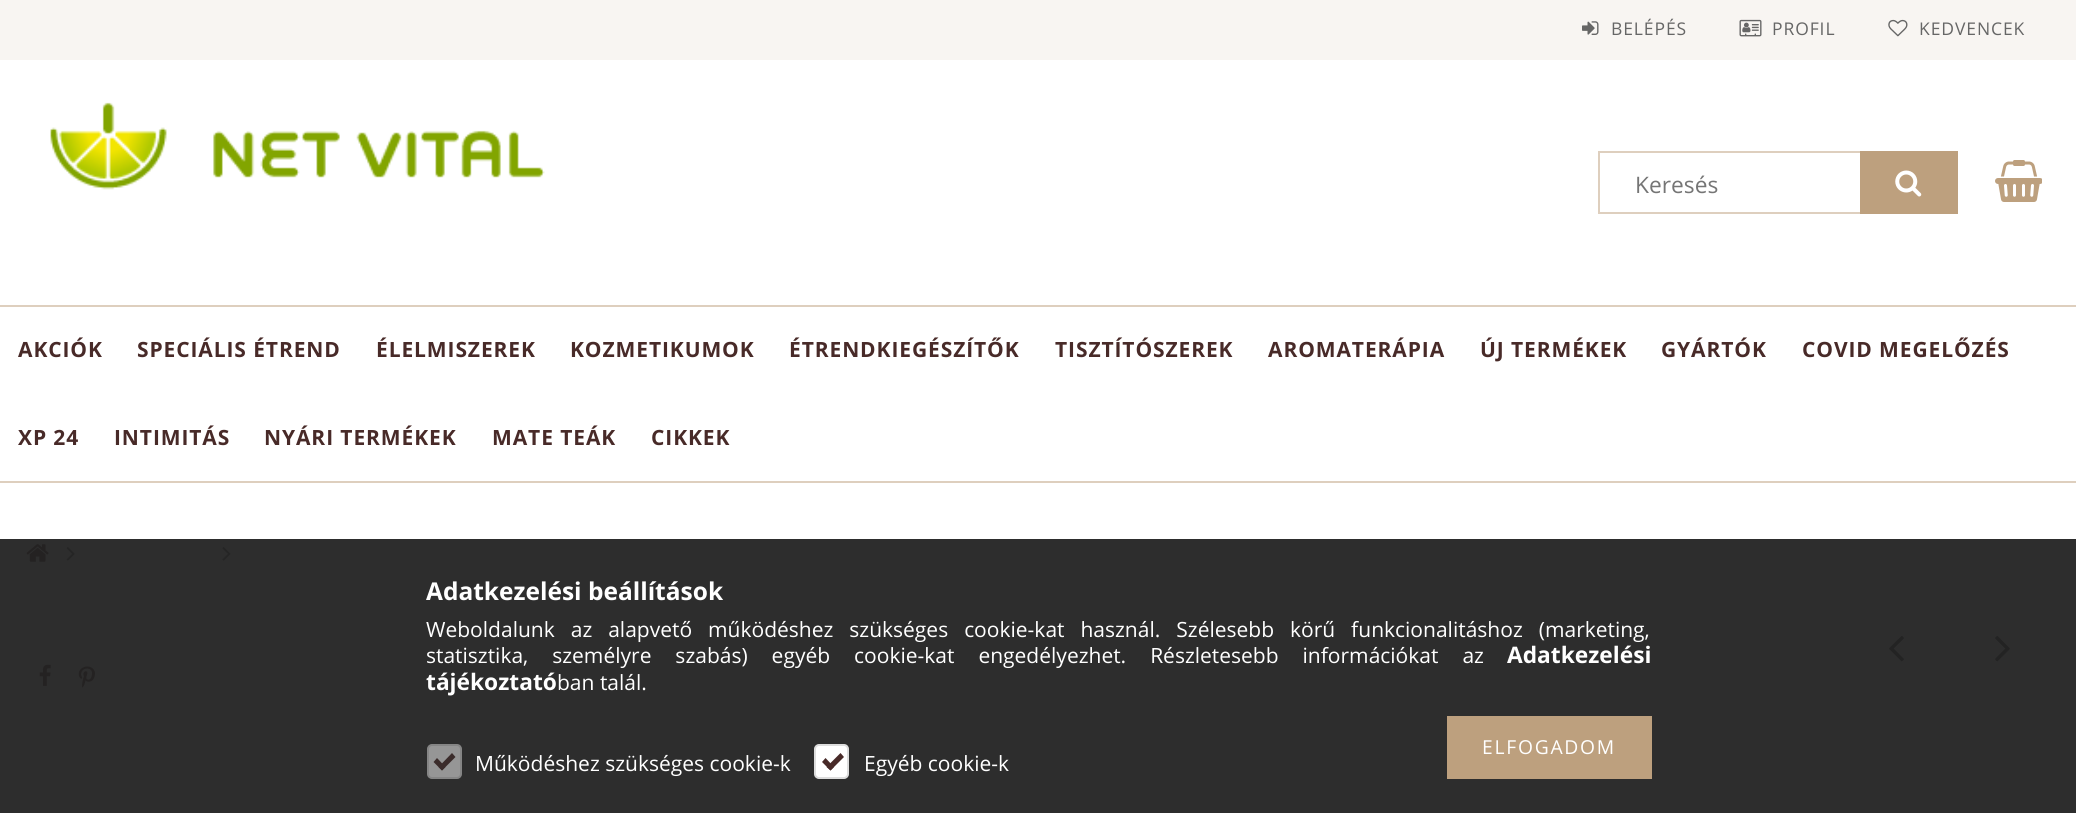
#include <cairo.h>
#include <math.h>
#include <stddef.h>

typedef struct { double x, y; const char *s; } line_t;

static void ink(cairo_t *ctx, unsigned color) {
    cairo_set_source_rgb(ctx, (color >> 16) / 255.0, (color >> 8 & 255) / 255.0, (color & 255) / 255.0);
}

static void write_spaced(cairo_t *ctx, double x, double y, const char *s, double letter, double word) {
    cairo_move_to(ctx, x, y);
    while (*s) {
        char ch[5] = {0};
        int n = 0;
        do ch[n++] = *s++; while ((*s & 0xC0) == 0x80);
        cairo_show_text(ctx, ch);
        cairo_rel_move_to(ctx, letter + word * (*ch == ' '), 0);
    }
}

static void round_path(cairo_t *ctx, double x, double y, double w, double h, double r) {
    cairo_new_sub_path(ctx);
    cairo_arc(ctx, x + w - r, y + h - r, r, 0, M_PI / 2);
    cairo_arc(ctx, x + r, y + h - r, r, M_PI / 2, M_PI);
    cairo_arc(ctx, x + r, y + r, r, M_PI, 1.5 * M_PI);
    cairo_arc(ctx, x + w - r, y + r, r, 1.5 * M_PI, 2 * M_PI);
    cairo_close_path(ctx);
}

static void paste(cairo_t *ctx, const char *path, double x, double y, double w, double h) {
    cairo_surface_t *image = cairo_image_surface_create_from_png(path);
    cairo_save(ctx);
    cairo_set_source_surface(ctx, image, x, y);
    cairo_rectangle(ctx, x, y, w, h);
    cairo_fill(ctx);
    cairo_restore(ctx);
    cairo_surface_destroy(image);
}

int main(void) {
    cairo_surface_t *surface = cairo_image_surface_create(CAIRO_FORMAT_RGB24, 2076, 813);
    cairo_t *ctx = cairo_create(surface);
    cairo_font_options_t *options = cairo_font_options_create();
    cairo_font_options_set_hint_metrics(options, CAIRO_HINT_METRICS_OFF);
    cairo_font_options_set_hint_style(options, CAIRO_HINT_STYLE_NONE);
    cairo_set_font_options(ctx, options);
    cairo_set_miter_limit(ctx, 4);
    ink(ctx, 0xFFFFFF);
    cairo_paint(ctx);
    ink(ctx, 0x2D2D2D);
    cairo_rectangle(ctx, 0, 539, 2076, 274);
    cairo_fill(ctx);
    ink(ctx, 0xF8F5F2);
    cairo_rectangle(ctx, 0, 0, 2076, 60);
    cairo_fill(ctx);
    paste(ctx, "media/1.png", 1582, 21, 17, 14);
    cairo_select_font_face(ctx, "Open Sans", CAIRO_FONT_SLANT_NORMAL, CAIRO_FONT_WEIGHT_NORMAL);
    cairo_set_font_size(ctx, 17.5);
    ink(ctx, 0x666666);
    write_spaced(ctx, 1611, 35, "BELÉPÉS", 0.9, 0);
    paste(ctx, "media/2.png", 1739, 19, 23, 18);
    write_spaced(ctx, 1772, 35, "PROFIL", 0.9, 0);
    paste(ctx, "media/3.png", 1888, 19, 20, 18);
    write_spaced(ctx, 1919, 35, "KEDVENCEK", 0.9, 0);
    paste(ctx, "media/4.png", 50, 102, 495, 88);
    cairo_rectangle(ctx, 1599, 152, 358, 61);
    ink(ctx, 0xDECFBE);
    cairo_stroke(ctx);
    cairo_set_font_size(ctx, 22.75);
    ink(ctx, 0x757575);
    cairo_move_to(ctx, 1635, 193);
    cairo_show_text(ctx, "Keresés");
    ink(ctx, 0xBDA07E);
    cairo_rectangle(ctx, 1860, 151, 98, 63);
    cairo_fill(ctx);
    paste(ctx, "media/5.png", 1895, 170, 27, 27);
    paste(ctx, "media/6.png", 1995, 160, 47, 42);
    ink(ctx, 0xDECFBE);
    cairo_rectangle(ctx, 0, 305, 2076, 2);
    cairo_fill(ctx);
    cairo_rectangle(ctx, 0, 481, 2076, 2);
    cairo_fill(ctx);
    cairo_select_font_face(ctx, "Open Sans", CAIRO_FONT_SLANT_NORMAL, CAIRO_FONT_WEIGHT_BOLD);
    cairo_set_font_size(ctx, 21);
    ink(ctx, 0x482A28);
    {
        static const line_t items[] = {
            {18, 357, "AKCIÓK"},
            {137, 357, "SPECIÁLIS ÉTREND"},
            {376, 357, "ÉLELMISZEREK"},
            {570, 357, "KOZMETIKUMOK"},
            {789, 357, "ÉTRENDKIEGÉSZÍTŐK"},
            {1055, 357, "TISZTÍTÓSZEREK"},
            {1268, 357, "AROMATERÁPIA"},
            {1480, 357, "ÚJ TERMÉKEK"},
            {1661, 357, "GYÁRTÓK"},
            {1802, 357, "COVID MEGELŐZÉS"},
            {18, 445, "XP 24"},
            {114, 445, "INTIMITÁS"},
            {264, 445, "NYÁRI TERMÉKEK"},
            {492, 445, "MATE TEÁK"},
            {651, 445, "CIKKEK"},
        };
        for (size_t i = 0; i < sizeof items / sizeof *items; i++) {
            write_spaced(ctx, items[i].x, items[i].y, items[i].s, 0.9, 0);
        }
    }
    paste(ctx, "media/7.png", 26, 544, 23, 18);
    paste(ctx, "media/8.png", 66, 547, 9, 14);
    paste(ctx, "media/9.png", 222, 547, 9, 14);
    paste(ctx, "media/10.png", 1889, 636, 15, 26);
    paste(ctx, "media/11.png", 1995, 636, 15, 26);
    paste(ctx, "media/12.png", 39, 664, 12, 22);
    paste(ctx, "media/13.png", 78, 666, 17, 22);
    cairo_set_font_size(ctx, 24.5);
    ink(ctx, 0xFFFFFF);
    cairo_move_to(ctx, 426, 600);
    cairo_show_text(ctx, "Adatkezelési beállítások");
    cairo_select_font_face(ctx, "Open Sans", CAIRO_FONT_SLANT_NORMAL, CAIRO_FONT_WEIGHT_NORMAL);
    cairo_set_font_size(ctx, 21);
    write_spaced(ctx, 426, 637, "Weboldalunk az alapvető működéshez szükséges cookie-kat használ. Szélesebb körű funkcionalitáshoz (marketing,", 0, 10.5);
    write_spaced(ctx, 426, 663, "statisztika, személyre szabás) egyéb cookie-kat engedélyezhet. Részletesebb információkat az", 0, 18.5);
    cairo_select_font_face(ctx, "Open Sans", CAIRO_FONT_SLANT_NORMAL, CAIRO_FONT_WEIGHT_BOLD);
    cairo_set_font_size(ctx, 22.75);
    cairo_move_to(ctx, 1507, 663);
    cairo_show_text(ctx, "Adatkezelési");
    cairo_move_to(ctx, 426, 690);
    cairo_show_text(ctx, "tájékoztató");
    cairo_select_font_face(ctx, "Open Sans", CAIRO_FONT_SLANT_NORMAL, CAIRO_FONT_WEIGHT_NORMAL);
    cairo_set_font_size(ctx, 21);
    cairo_move_to(ctx, 557, 690);
    cairo_show_text(ctx, "ban talál.");
    ink(ctx, 0xBDA07E);
    cairo_rectangle(ctx, 1447, 716, 205, 63);
    cairo_fill(ctx);
    cairo_set_font_size(ctx, 19.25);
    ink(ctx, 0xFFFFFF);
    write_spaced(ctx, 1482, 754, "ELFOGADOM", 1.75, 0);
    ink(ctx, 0x969696);
    round_path(ctx, 428, 745, 33, 33, 4);
    cairo_fill_preserve(ctx);
    ink(ctx, 0x858585);
    cairo_stroke(ctx);
    ink(ctx, 0x3B2C2B);
    cairo_new_path(ctx);
    cairo_move_to(ctx, 438.5, 767);
    cairo_line_to(ctx, 452, 753);
    cairo_line_to(ctx, 455.5, 757);
    cairo_line_to(ctx, 442, 770.5);
    cairo_close_path(ctx);
    cairo_fill(ctx);
    cairo_new_path(ctx);
    cairo_move_to(ctx, 433.5, 762);
    cairo_line_to(ctx, 437, 758);
    cairo_line_to(ctx, 445.5, 767);
    cairo_line_to(ctx, 442, 770.5);
    cairo_close_path(ctx);
    cairo_fill(ctx);
    cairo_set_font_size(ctx, 21);
    ink(ctx, 0xFFFFFF);
    cairo_move_to(ctx, 475, 771);
    cairo_show_text(ctx, "Működéshez szükséges cookie-k");
    round_path(ctx, 815, 745, 33, 33, 4);
    cairo_fill_preserve(ctx);
    ink(ctx, 0xDDDDDD);
    cairo_stroke(ctx);
    ink(ctx, 0x482A28);
    cairo_new_path(ctx);
    cairo_move_to(ctx, 826.5, 767);
    cairo_line_to(ctx, 840.5, 753);
    cairo_line_to(ctx, 844, 757);
    cairo_line_to(ctx, 830.5, 770.5);
    cairo_close_path(ctx);
    cairo_fill(ctx);
    cairo_new_path(ctx);
    cairo_move_to(ctx, 822, 762);
    cairo_line_to(ctx, 825.5, 758);
    cairo_line_to(ctx, 834, 767);
    cairo_line_to(ctx, 830.5, 770.5);
    cairo_close_path(ctx);
    cairo_fill(ctx);
    ink(ctx, 0xFFFFFF);
    cairo_move_to(ctx, 864, 771);
    cairo_show_text(ctx, "Egyéb cookie-k");
    cairo_surface_write_to_png(surface, "image.png");
    cairo_font_options_destroy(options);
    cairo_destroy(ctx);
    cairo_surface_destroy(surface);
    return 0;
}
